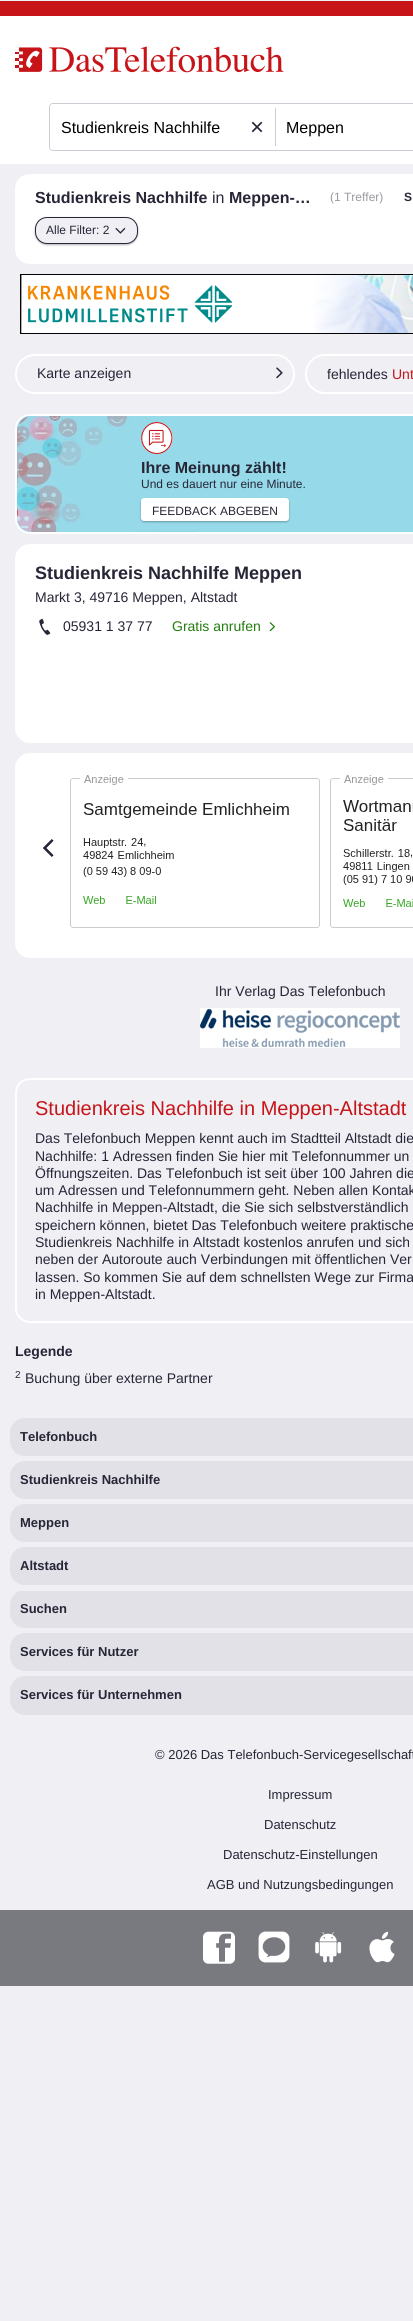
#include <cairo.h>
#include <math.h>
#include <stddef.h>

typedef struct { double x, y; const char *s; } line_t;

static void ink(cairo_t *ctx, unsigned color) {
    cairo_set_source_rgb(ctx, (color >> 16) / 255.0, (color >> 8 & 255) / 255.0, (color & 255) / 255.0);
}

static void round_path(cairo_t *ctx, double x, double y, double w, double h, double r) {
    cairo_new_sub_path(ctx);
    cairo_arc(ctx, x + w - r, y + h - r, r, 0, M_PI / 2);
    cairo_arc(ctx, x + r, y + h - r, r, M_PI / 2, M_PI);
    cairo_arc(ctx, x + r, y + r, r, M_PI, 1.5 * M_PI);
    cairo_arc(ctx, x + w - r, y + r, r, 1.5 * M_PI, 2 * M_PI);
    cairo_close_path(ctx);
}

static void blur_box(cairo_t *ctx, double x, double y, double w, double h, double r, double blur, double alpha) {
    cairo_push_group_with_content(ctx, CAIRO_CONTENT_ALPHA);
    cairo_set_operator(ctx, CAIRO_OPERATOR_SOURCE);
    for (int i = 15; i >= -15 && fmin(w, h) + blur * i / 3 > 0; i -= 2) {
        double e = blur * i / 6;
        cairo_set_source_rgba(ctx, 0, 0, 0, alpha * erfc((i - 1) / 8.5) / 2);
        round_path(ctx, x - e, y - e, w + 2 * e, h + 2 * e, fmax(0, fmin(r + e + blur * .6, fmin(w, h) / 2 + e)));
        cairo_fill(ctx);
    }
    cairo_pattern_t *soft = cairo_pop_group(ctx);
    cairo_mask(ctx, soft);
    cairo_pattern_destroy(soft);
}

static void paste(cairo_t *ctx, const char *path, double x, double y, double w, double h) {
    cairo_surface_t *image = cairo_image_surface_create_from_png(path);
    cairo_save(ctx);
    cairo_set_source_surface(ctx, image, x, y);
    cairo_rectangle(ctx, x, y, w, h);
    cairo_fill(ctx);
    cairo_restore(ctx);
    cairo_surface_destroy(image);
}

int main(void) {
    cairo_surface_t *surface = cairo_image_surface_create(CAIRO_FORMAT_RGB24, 413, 2321);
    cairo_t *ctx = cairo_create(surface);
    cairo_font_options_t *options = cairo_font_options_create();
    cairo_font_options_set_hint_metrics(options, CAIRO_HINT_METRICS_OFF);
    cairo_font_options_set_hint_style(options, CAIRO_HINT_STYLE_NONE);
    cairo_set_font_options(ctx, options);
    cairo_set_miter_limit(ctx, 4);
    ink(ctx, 0xEFEFF4);
    cairo_paint(ctx);
    ink(ctx, 0xFFFFFF);
    cairo_rectangle(ctx, 0, 16, 413, 148);
    cairo_fill(ctx);
    ink(ctx, 0xC71418);
    cairo_rectangle(ctx, 0, 1, 413, 15);
    cairo_fill(ctx);
    paste(ctx, "media/1.png", 15, 46, 269, 27);
    round_path(ctx, 49.5, 103.5, 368, 47, 3.5);
    ink(ctx, 0xCCCCD4);
    cairo_set_line_width(ctx, 1);
    cairo_stroke(ctx);
    ink(ctx, 0xFFFFFF);
    round_path(ctx, 50, 104, 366, 46, 3);
    cairo_fill(ctx);
    cairo_select_font_face(ctx, "Liberation Sans", CAIRO_FONT_SLANT_NORMAL, CAIRO_FONT_WEIGHT_NORMAL);
    cairo_set_font_size(ctx, 16);
    ink(ctx, 0x000000);
    cairo_move_to(ctx, 61, 133);
    cairo_show_text(ctx, "Studienkreis Nachhilfe");
    cairo_set_font_size(ctx, 24);
    ink(ctx, 0x262637);
    cairo_move_to(ctx, 250, 135);
    cairo_show_text(ctx, "×");
    ink(ctx, 0xCCCCD4);
    cairo_rectangle(ctx, 275, 108, 1, 38);
    cairo_fill(ctx);
    cairo_set_font_size(ctx, 16);
    ink(ctx, 0x000000);
    cairo_move_to(ctx, 286, 133);
    cairo_show_text(ctx, "Meppen");
    ink(ctx, 0xFFFFFF);
    cairo_rectangle(ctx, 15, 189, 398, 60);
    cairo_fill(ctx);
    cairo_new_path(ctx);
    cairo_move_to(ctx, 30, 174);
    cairo_line_to(ctx, 413, 174);
    cairo_curve_to(ctx, 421.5, 174, 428, 180.5, 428, 189);
    cairo_line_to(ctx, 15, 189);
    cairo_curve_to(ctx, 15, 180.5, 21.5, 174, 30, 174);
    cairo_close_path(ctx);
    cairo_fill(ctx);
    cairo_select_font_face(ctx, "Liberation Sans", CAIRO_FONT_SLANT_NORMAL, CAIRO_FONT_WEIGHT_BOLD);
    ink(ctx, 0x262637);
    cairo_move_to(ctx, 35, 203);
    cairo_show_text(ctx, "Studienkreis Nachhilfe");
    cairo_select_font_face(ctx, "Liberation Sans", CAIRO_FONT_SLANT_NORMAL, CAIRO_FONT_WEIGHT_NORMAL);
    cairo_move_to(ctx, 212, 203);
    cairo_show_text(ctx, "in");
    cairo_select_font_face(ctx, "Liberation Sans", CAIRO_FONT_SLANT_NORMAL, CAIRO_FONT_WEIGHT_BOLD);
    cairo_move_to(ctx, 229, 203);
    cairo_show_text(ctx, "Meppen-…");
    cairo_select_font_face(ctx, "Liberation Sans", CAIRO_FONT_SLANT_NORMAL, CAIRO_FONT_WEIGHT_NORMAL);
    cairo_set_font_size(ctx, 12);
    ink(ctx, 0x9999A3);
    cairo_move_to(ctx, 330, 201);
    cairo_show_text(ctx, "(1 Treffer)");
    cairo_select_font_face(ctx, "Liberation Sans", CAIRO_FONT_SLANT_NORMAL, CAIRO_FONT_WEIGHT_BOLD);
    ink(ctx, 0x262637);
    cairo_move_to(ctx, 404, 201);
    cairo_show_text(ctx, "S");
    ink(ctx, 0x000000);
    blur_box(ctx, 35, 218, 103, 27, 12, 1, 0.3);
    ink(ctx, 0xEFEFF4);
    round_path(ctx, 35.5, 217.5, 102, 26, 11.5);
    cairo_fill_preserve(ctx);
    ink(ctx, 0x262637);
    cairo_stroke(ctx);
    cairo_select_font_face(ctx, "Liberation Sans", CAIRO_FONT_SLANT_NORMAL, CAIRO_FONT_WEIGHT_NORMAL);
    cairo_move_to(ctx, 46, 234);
    cairo_show_text(ctx, "Alle Filter: 2");
    paste(ctx, "media/2.png", 115, 228, 11, 6);
    ink(ctx, 0xFFFFFF);
    cairo_new_path(ctx);
    cairo_move_to(ctx, 15, 249);
    cairo_line_to(ctx, 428, 249);
    cairo_curve_to(ctx, 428, 257.5, 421.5, 264, 413, 264);
    cairo_line_to(ctx, 30, 264);
    cairo_curve_to(ctx, 21.5, 264, 15, 257.5, 15, 249);
    cairo_close_path(ctx);
    cairo_fill(ctx);
    paste(ctx, "media/3.png", 20, 274, 393, 60);
    round_path(ctx, 16, 355, 278, 38, 19);
    cairo_set_line_width(ctx, 2);
    cairo_stroke(ctx);
    cairo_set_font_size(ctx, 14);
    ink(ctx, 0x262637);
    cairo_move_to(ctx, 37, 378);
    cairo_show_text(ctx, "Karte anzeigen");
    paste(ctx, "media/4.png", 276, 367, 7, 12);
    round_path(ctx, 306, 355, 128, 38, 19);
    ink(ctx, 0xFFFFFF);
    cairo_stroke(ctx);
    ink(ctx, 0x262637);
    cairo_move_to(ctx, 327, 379);
    cairo_show_text(ctx, "fehlendes");
    ink(ctx, 0xC71418);
    cairo_move_to(ctx, 392, 379);
    cairo_show_text(ctx, "Unt");
    ink(ctx, 0x96DAEA);
    round_path(ctx, 16, 415, 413, 118, 14);
    cairo_fill_preserve(ctx);
    ink(ctx, 0xFFFFFF);
    cairo_stroke(ctx);
    paste(ctx, "media/5.png", 17, 416, 180, 116);
    paste(ctx, "media/6.png", 141, 422, 32, 32);
    cairo_select_font_face(ctx, "Liberation Sans", CAIRO_FONT_SLANT_NORMAL, CAIRO_FONT_WEIGHT_BOLD);
    cairo_set_font_size(ctx, 16);
    ink(ctx, 0x262637);
    cairo_move_to(ctx, 141, 473);
    cairo_show_text(ctx, "Ihre Meinung zählt!");
    cairo_select_font_face(ctx, "Liberation Sans", CAIRO_FONT_SLANT_NORMAL, CAIRO_FONT_WEIGHT_NORMAL);
    cairo_set_font_size(ctx, 12);
    cairo_move_to(ctx, 141, 488);
    cairo_show_text(ctx, "Und es dauert nur eine Minute.");
    ink(ctx, 0x000000);
    blur_box(ctx, 141, 499, 148, 23, 3, 1, 0.3);
    ink(ctx, 0xFFFFFF);
    round_path(ctx, 141, 498, 148, 23, 3);
    cairo_fill(ctx);
    ink(ctx, 0x262637);
    cairo_move_to(ctx, 152, 515);
    cairo_show_text(ctx, "FEEDBACK ABGEBEN");
    ink(ctx, 0xFFFFFF);
    round_path(ctx, 15, 544, 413, 199, 15);
    cairo_fill(ctx);
    cairo_select_font_face(ctx, "Liberation Sans", CAIRO_FONT_SLANT_NORMAL, CAIRO_FONT_WEIGHT_BOLD);
    cairo_set_font_size(ctx, 18);
    ink(ctx, 0x262637);
    cairo_move_to(ctx, 35, 579);
    cairo_show_text(ctx, "Studienkreis Nachhilfe Meppen");
    cairo_select_font_face(ctx, "Liberation Sans", CAIRO_FONT_SLANT_NORMAL, CAIRO_FONT_WEIGHT_NORMAL);
    cairo_set_font_size(ctx, 14);
    cairo_move_to(ctx, 35, 602);
    cairo_show_text(ctx, "Markt 3, 49716 Meppen, Altstadt");
    paste(ctx, "media/7.png", 39, 618, 12, 17);
    cairo_move_to(ctx, 63, 631);
    cairo_show_text(ctx, "05931 1 37 77");
    ink(ctx, 0x237D0D);
    cairo_move_to(ctx, 172, 631);
    cairo_show_text(ctx, "Gratis anrufen");
    paste(ctx, "media/8.png", 269, 622, 6, 10);
    ink(ctx, 0xFFFFFF);
    round_path(ctx, 16, 754, 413, 203, 14);
    cairo_fill_preserve(ctx);
    cairo_stroke(ctx);
    paste(ctx, "media/9.png", 43, 775, 370, 153);
    ink(ctx, 0x262637);
    cairo_move_to(ctx, 215, 996);
    cairo_show_text(ctx, "Ihr Verlag Das Telefonbuch");
    paste(ctx, "media/10.png", 200, 1008, 200, 40);
    round_path(ctx, 16, 1079, 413, 243, 14);
    ink(ctx, 0xFFFFFF);
    cairo_stroke(ctx);
    cairo_set_font_size(ctx, 20);
    ink(ctx, 0xC71418);
    cairo_move_to(ctx, 35, 1115);
    cairo_show_text(ctx, "Studienkreis Nachhilfe in Meppen-Altstadt");
    cairo_set_font_size(ctx, 14);
    ink(ctx, 0x262637);
    {
        static const line_t items[] = {
            {35, 1143, "Das Telefonbuch Meppen kennt auch im Stadtteil Altstadt die"},
            {35, 1161, "Nachhilfe: 1 Adressen finden Sie hier mit Telefonnummer un"},
            {35, 1178, "Öffnungszeiten. Das Telefonbuch ist seit über 100 Jahren die"},
            {35, 1195, "um Adressen und Telefonnummern geht. Neben allen Kontak"},
            {35, 1212, "Nachhilfe in Meppen-Altstadt, die Sie sich selbstverständlich"},
            {35, 1230, "speichern können, bietet Das Telefonbuch weitere praktische"},
            {35, 1247, "Studienkreis Nachhilfe in Altstadt kostenlos anrufen und sich"},
            {35, 1264, "neben der Autoroute auch Verbindungen mit öffentlichen Ver"},
            {35, 1282, "lassen. So kommen Sie auf dem schnellsten Wege zur Firma"},
            {35, 1299, "in Meppen-Altstadt."},
        };
        for (size_t i = 0; i < sizeof items / sizeof *items; i++) {
            cairo_move_to(ctx, items[i].x, items[i].y);
            cairo_show_text(ctx, items[i].s);
        }
    }
    cairo_select_font_face(ctx, "Liberation Sans", CAIRO_FONT_SLANT_NORMAL, CAIRO_FONT_WEIGHT_BOLD);
    cairo_move_to(ctx, 15, 1356);
    cairo_show_text(ctx, "Legende");
    cairo_select_font_face(ctx, "Liberation Sans", CAIRO_FONT_SLANT_NORMAL, CAIRO_FONT_WEIGHT_NORMAL);
    cairo_set_font_size(ctx, 10);
    cairo_move_to(ctx, 15, 1378);
    cairo_show_text(ctx, "2");
    cairo_set_font_size(ctx, 14);
    cairo_move_to(ctx, 25, 1383);
    cairo_show_text(ctx, "Buchung über externe Partner");
    ink(ctx, 0xE1E1E7);
    round_path(ctx, 10, 1590, 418, 38, 15);
    cairo_fill(ctx);
    ink(ctx, 0xEFEFF4);
    cairo_rectangle(ctx, 20, 1590, 393, 1);
    cairo_fill(ctx);
    ink(ctx, 0xE1E1E7);
    round_path(ctx, 10, 1418, 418, 38, 15);
    cairo_fill(ctx);
    cairo_select_font_face(ctx, "Liberation Sans", CAIRO_FONT_SLANT_NORMAL, CAIRO_FONT_WEIGHT_BOLD);
    cairo_set_font_size(ctx, 13);
    ink(ctx, 0x262637);
    cairo_move_to(ctx, 20, 1441);
    cairo_show_text(ctx, "Telefonbuch");
    ink(ctx, 0xE1E1E7);
    round_path(ctx, 10, 1461, 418, 38, 15);
    cairo_fill(ctx);
    ink(ctx, 0x262637);
    cairo_move_to(ctx, 20, 1484);
    cairo_show_text(ctx, "Studienkreis Nachhilfe");
    ink(ctx, 0xE1E1E7);
    round_path(ctx, 10, 1504, 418, 38, 15);
    cairo_fill(ctx);
    ink(ctx, 0x262637);
    cairo_move_to(ctx, 20, 1527);
    cairo_show_text(ctx, "Meppen");
    ink(ctx, 0xE1E1E7);
    round_path(ctx, 10, 1547, 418, 38, 15);
    cairo_fill(ctx);
    ink(ctx, 0x262637);
    cairo_move_to(ctx, 20, 1570);
    cairo_show_text(ctx, "Altstadt");
    cairo_move_to(ctx, 20, 1613);
    cairo_show_text(ctx, "Suchen");
    ink(ctx, 0xE1E1E7);
    round_path(ctx, 10, 1633, 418, 38, 15);
    cairo_fill(ctx);
    ink(ctx, 0x262637);
    cairo_move_to(ctx, 20, 1656);
    cairo_show_text(ctx, "Services für Nutzer");
    ink(ctx, 0xE1E1E7);
    round_path(ctx, 10, 1676, 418, 39, 15);
    cairo_fill(ctx);
    ink(ctx, 0x262637);
    cairo_move_to(ctx, 20, 1699);
    cairo_show_text(ctx, "Services für Unternehmen");
    cairo_select_font_face(ctx, "Liberation Sans", CAIRO_FONT_SLANT_NORMAL, CAIRO_FONT_WEIGHT_NORMAL);
    {
        static const line_t items[] = {
            {155, 1759, "© 2026 Das Telefonbuch-Servicegesellschaft"},
            {268, 1799, "Impressum"},
            {264, 1829, "Datenschutz"},
            {223, 1859, "Datenschutz-Einstellungen"},
            {207, 1889, "AGB und Nutzungsbedingungen"},
        };
        for (size_t i = 0; i < sizeof items / sizeof *items; i++) {
            cairo_move_to(ctx, items[i].x, items[i].y);
            cairo_show_text(ctx, items[i].s);
        }
    }
    ink(ctx, 0x797980);
    cairo_rectangle(ctx, 0, 1910, 413, 76);
    cairo_fill(ctx);
    paste(ctx, "media/11.png", 203, 1931, 32, 33);
    paste(ctx, "media/12.png", 258, 1931, 32, 32);
    paste(ctx, "media/13.png", 315, 1932, 27, 31);
    paste(ctx, "media/14.png", 369, 1931, 26, 32);
    cairo_surface_write_to_png(surface, "image.png");
    cairo_font_options_destroy(options);
    cairo_destroy(ctx);
    cairo_surface_destroy(surface);
    return 0;
}
